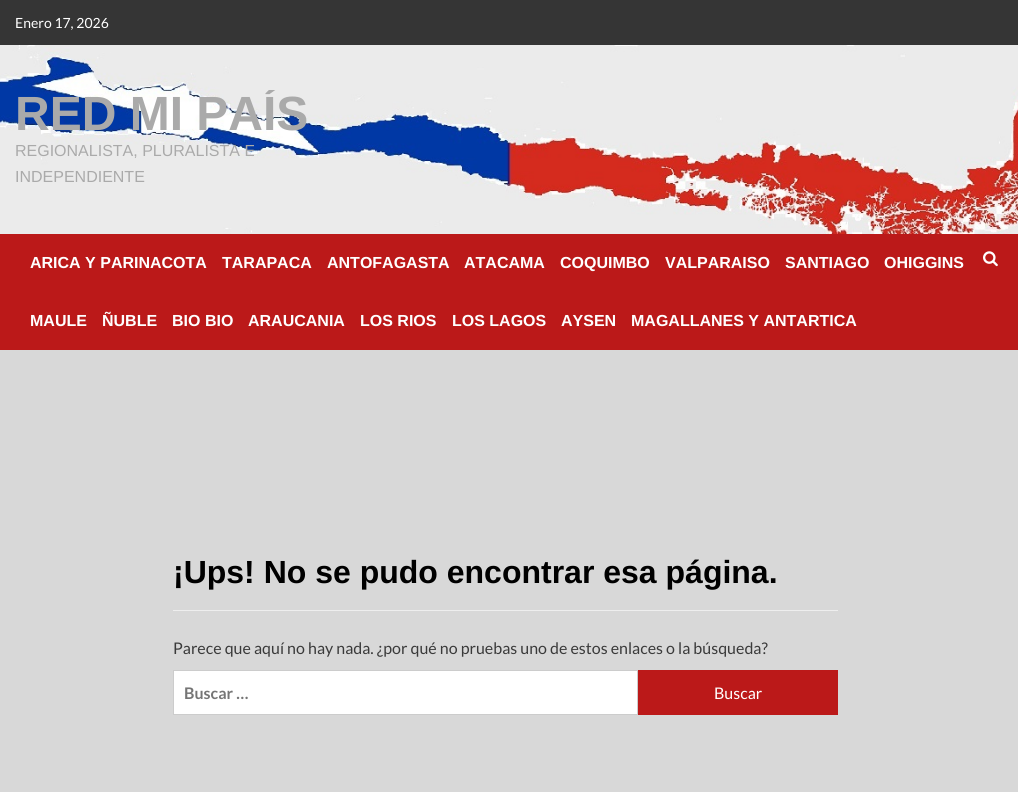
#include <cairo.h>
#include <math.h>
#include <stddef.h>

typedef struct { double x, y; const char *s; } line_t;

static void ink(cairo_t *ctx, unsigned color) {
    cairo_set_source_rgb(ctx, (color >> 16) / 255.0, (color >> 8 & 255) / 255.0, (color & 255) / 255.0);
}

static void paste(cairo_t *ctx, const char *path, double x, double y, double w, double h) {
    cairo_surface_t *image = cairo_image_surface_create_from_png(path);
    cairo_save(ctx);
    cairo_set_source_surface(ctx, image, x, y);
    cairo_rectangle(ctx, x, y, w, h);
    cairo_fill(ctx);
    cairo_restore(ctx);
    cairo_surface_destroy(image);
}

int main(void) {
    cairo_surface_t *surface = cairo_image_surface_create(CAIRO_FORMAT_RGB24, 1018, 792);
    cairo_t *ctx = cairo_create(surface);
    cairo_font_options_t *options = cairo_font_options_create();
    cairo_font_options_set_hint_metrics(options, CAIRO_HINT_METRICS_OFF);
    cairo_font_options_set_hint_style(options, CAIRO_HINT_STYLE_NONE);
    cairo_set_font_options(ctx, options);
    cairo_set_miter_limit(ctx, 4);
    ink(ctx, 0xD8D8D8);
    cairo_paint(ctx);
    ink(ctx, 0x353535);
    cairo_rectangle(ctx, 0, 0, 1018, 45);
    cairo_fill(ctx);
    cairo_select_font_face(ctx, "Lato", CAIRO_FONT_SLANT_NORMAL, CAIRO_FONT_WEIGHT_NORMAL);
    cairo_set_font_size(ctx, 14);
    ink(ctx, 0xFFFFFF);
    cairo_move_to(ctx, 15, 28);
    cairo_show_text(ctx, "Enero 17, 2026");
    paste(ctx, "media/1.png", 0, 45, 1018, 189);
    cairo_save(ctx);
    cairo_rectangle(ctx, 0, 90, 1018, 99);
    cairo_clip(ctx);
    cairo_select_font_face(ctx, "Liberation Sans", CAIRO_FONT_SLANT_NORMAL, CAIRO_FONT_WEIGHT_BOLD);
    cairo_set_font_size(ctx, 48);
    ink(ctx, 0xAAAAAA);
    cairo_move_to(ctx, 15, 130);
    cairo_show_text(ctx, "RED MI PAÍS");
    cairo_restore(ctx);
    cairo_select_font_face(ctx, "Liberation Sans", CAIRO_FONT_SLANT_NORMAL, CAIRO_FONT_WEIGHT_NORMAL);
    cairo_set_font_size(ctx, 16);
    ink(ctx, 0xAAAAAA);
    cairo_move_to(ctx, 15, 156);
    cairo_show_text(ctx, "REGIONALISTA, PLURALISTA E");
    cairo_move_to(ctx, 15, 182);
    cairo_show_text(ctx, "INDEPENDIENTE");
    ink(ctx, 0xBB1919);
    cairo_rectangle(ctx, 0, 234, 1018, 116);
    cairo_fill(ctx);
    cairo_select_font_face(ctx, "Liberation Sans", CAIRO_FONT_SLANT_NORMAL, CAIRO_FONT_WEIGHT_BOLD);
    ink(ctx, 0xFFFFFF);
    {
        static const line_t items[] = {
            {30, 268, "ARICA Y PARINACOTA"},
            {222, 268, "TARAPACA"},
            {327, 268, "ANTOFAGASTA"},
            {464, 268, "ATACAMA"},
            {560, 268, "COQUIMBO"},
            {665, 268, "VALPARAISO"},
            {785, 268, "SANTIAGO"},
            {884, 268, "OHIGGINS"},
            {30, 326, "MAULE"},
            {102, 326, "ÑUBLE"},
            {172, 326, "BIO BIO"},
            {248, 326, "ARAUCANIA"},
            {360, 326, "LOS RIOS"},
            {452, 326, "LOS LAGOS"},
            {561, 326, "AYSEN"},
            {631, 326, "MAGALLANES Y ANTARTICA"},
        };
        for (size_t i = 0; i < sizeof items / sizeof *items; i++) {
            cairo_move_to(ctx, items[i].x, items[i].y);
            cairo_show_text(ctx, items[i].s);
        }
    }
    paste(ctx, "media/2.png", 983, 251, 15, 16);
    ink(ctx, 0xEEEEEE);
    cairo_rectangle(ctx, 173, 610, 665, 1);
    cairo_fill(ctx);
    cairo_set_font_size(ctx, 32);
    ink(ctx, 0x000000);
    cairo_move_to(ctx, 173, 583);
    cairo_show_text(ctx, "¡Ups! No se pudo encontrar esa página.");
    cairo_select_font_face(ctx, "Lato", CAIRO_FONT_SLANT_NORMAL, CAIRO_FONT_WEIGHT_NORMAL);
    cairo_set_font_size(ctx, 16);
    ink(ctx, 0x3A3A3A);
    cairo_move_to(ctx, 173, 654);
    cairo_show_text(ctx, "Parece que aquí no hay nada. ¿por qué no pruebas uno de estos enlaces o la búsqueda?");
    ink(ctx, 0xFFFFFF);
    cairo_rectangle(ctx, 173.5, 670.5, 464, 44);
    cairo_fill_preserve(ctx);
    ink(ctx, 0xCCCCCC);
    cairo_set_line_width(ctx, 1);
    cairo_stroke(ctx);
    cairo_select_font_face(ctx, "Lato", CAIRO_FONT_SLANT_NORMAL, CAIRO_FONT_WEIGHT_BOLD);
    ink(ctx, 0x757575);
    cairo_move_to(ctx, 184, 699);
    cairo_show_text(ctx, "Buscar …");
    ink(ctx, 0xBB1919);
    cairo_rectangle(ctx, 638, 670, 200, 45);
    cairo_fill(ctx);
    cairo_select_font_face(ctx, "Lato", CAIRO_FONT_SLANT_NORMAL, CAIRO_FONT_WEIGHT_NORMAL);
    ink(ctx, 0xFFFFFF);
    cairo_move_to(ctx, 714, 699);
    cairo_show_text(ctx, "Buscar");
    cairo_surface_write_to_png(surface, "image.png");
    cairo_font_options_destroy(options);
    cairo_destroy(ctx);
    cairo_surface_destroy(surface);
    return 0;
}
